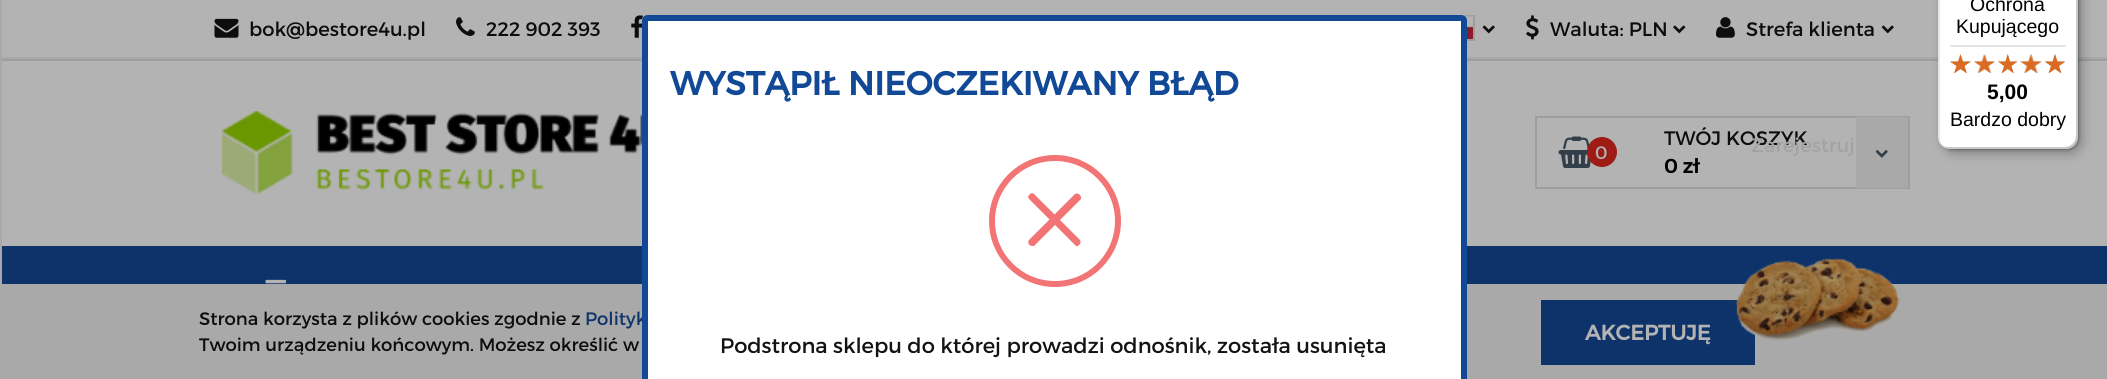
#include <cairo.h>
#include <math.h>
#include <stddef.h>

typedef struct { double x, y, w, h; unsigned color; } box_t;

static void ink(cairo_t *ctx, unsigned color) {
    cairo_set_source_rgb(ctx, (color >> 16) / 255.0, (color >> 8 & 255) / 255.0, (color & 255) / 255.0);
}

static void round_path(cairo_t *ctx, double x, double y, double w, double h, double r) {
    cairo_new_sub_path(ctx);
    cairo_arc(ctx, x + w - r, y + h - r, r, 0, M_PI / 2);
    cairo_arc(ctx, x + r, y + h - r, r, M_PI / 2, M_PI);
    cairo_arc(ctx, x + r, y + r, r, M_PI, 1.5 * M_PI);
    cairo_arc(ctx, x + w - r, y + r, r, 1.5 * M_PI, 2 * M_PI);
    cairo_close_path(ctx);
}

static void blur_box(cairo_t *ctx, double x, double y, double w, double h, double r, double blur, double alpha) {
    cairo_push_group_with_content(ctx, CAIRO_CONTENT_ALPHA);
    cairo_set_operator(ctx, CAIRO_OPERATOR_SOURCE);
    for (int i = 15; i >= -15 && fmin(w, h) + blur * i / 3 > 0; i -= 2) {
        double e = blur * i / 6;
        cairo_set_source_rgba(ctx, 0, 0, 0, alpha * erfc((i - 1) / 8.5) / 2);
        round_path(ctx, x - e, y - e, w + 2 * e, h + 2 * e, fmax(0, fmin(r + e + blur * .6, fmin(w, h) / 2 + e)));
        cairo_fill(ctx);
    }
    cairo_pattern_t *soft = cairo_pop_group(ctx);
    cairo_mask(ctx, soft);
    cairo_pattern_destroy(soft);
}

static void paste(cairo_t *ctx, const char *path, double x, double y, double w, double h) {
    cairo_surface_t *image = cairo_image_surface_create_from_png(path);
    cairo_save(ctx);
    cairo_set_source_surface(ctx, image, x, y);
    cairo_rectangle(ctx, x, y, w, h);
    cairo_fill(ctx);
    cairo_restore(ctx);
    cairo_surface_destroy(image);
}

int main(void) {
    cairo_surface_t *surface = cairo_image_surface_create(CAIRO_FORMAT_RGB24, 2107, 379);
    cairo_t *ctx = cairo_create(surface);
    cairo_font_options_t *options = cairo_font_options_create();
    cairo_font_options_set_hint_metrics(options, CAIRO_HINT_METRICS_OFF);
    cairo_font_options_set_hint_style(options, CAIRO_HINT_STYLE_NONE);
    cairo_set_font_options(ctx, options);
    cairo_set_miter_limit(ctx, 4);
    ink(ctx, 0xA9A9A9);
    cairo_paint(ctx);
    {
        static const box_t items[] = {
            {2, 0, 2105, 57, 0xB3B3B3},
            {2, 59, 2105, 2, 0x9E9E9E},
            {2, 61, 2105, 185, 0xB3B3B3},
        };
        for (size_t i = 0; i < sizeof items / sizeof *items; i++) {
            ink(ctx, items[i].color);
            cairo_rectangle(ctx, items[i].x, items[i].y, items[i].w, items[i].h);
            cairo_fill(ctx);
        }
    }
    ink(ctx, 0x000000);
    blur_box(ctx, 1943, -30, 139, 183, 12, 6, 0.15);
    blur_box(ctx, 1940, -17, 139, 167, 12, 1.5, 0.15);
    cairo_set_source_rgba(ctx, 0, 0, 0, 0.2);
    cairo_new_path(ctx);
    cairo_move_to(ctx, 1940, 144);
    cairo_curve_to(ctx, 1943, 147, 1946, 149, 1950, 149);
    cairo_line_to(ctx, 2066, 149);
    cairo_curve_to(ctx, 2073, 149, 2078, 144, 2078, 137);
    cairo_line_to(ctx, 2078, -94);
    cairo_curve_to(ctx, 2078, -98, 2076, -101, 2074, -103);
    cairo_curve_to(ctx, 2075, -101, 2076, -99, 2076, -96);
    cairo_line_to(ctx, 2076, 135);
    cairo_curve_to(ctx, 2076, 142, 2071, 147, 2064, 147);
    cairo_line_to(ctx, 1948, 147);
    cairo_curve_to(ctx, 1945, 147, 1943, 146, 1940, 144);
    cairo_close_path(ctx);
    cairo_fill(ctx);
    cairo_set_source_rgba(ctx, 0.196, 0.196, 0.196, 0.2);
    cairo_new_path(ctx);
    cairo_move_to(ctx, 1941, 145);
    cairo_curve_to(ctx, 1943, 147, 1946, 149, 1950, 149);
    cairo_line_to(ctx, 2066, 149);
    cairo_curve_to(ctx, 2073, 149, 2078, 144, 2078, 137);
    cairo_line_to(ctx, 2078, -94);
    cairo_curve_to(ctx, 2078, -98, 2076, -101, 2074, -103);
    cairo_curve_to(ctx, 2076, -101, 2077, -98, 2077, -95);
    cairo_line_to(ctx, 2077, 136);
    cairo_curve_to(ctx, 2077, 142, 2071, 148, 2065, 148);
    cairo_line_to(ctx, 1949, 148);
    cairo_curve_to(ctx, 1946, 148, 1943, 147, 1941, 145);
    cairo_close_path(ctx);
    cairo_fill(ctx);
    cairo_set_source_rgba(ctx, 1, 1, 1, 0.3);
    cairo_new_path(ctx);
    cairo_move_to(ctx, 1940, 143);
    cairo_curve_to(ctx, 1942, 147, 1945, 149, 1950, 149);
    cairo_line_to(ctx, 2066, 149);
    cairo_curve_to(ctx, 2073, 149, 2078, 144, 2078, 137);
    cairo_line_to(ctx, 2078, -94);
    cairo_curve_to(ctx, 2078, -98, 2076, -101, 2074, -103);
    cairo_curve_to(ctx, 2076, -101, 2077, -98, 2077, -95);
    cairo_line_to(ctx, 2077, 136);
    cairo_curve_to(ctx, 2077, 142, 2071, 148, 2065, 148);
    cairo_line_to(ctx, 1949, 148);
    cairo_curve_to(ctx, 1945, 148, 1942, 146, 1940, 143);
    cairo_close_path(ctx);
    cairo_fill(ctx);
    paste(ctx, "media/1.png", 214, 18, 25, 20);
    cairo_select_font_face(ctx, "Montserrat", CAIRO_FONT_SLANT_NORMAL, CAIRO_FONT_WEIGHT_NORMAL);
    cairo_set_font_size(ctx, 19.5);
    ink(ctx, 0x0D0D0D);
    cairo_move_to(ctx, 249, 36);
    cairo_show_text(ctx, "bok@bestore4u.pl");
    paste(ctx, "media/2.png", 456, 17, 19, 19);
    cairo_move_to(ctx, 486, 36);
    cairo_show_text(ctx, "222 902 393");
    paste(ctx, "media/3.png", 631, 15, 12, 23);
    cairo_rectangle(ctx, 1434, 16, 40, 24);
    ink(ctx, 0x9E9E9E);
    cairo_stroke(ctx);
    paste(ctx, "media/4.png", 1465, 16, 8, 23);
    paste(ctx, "media/5.png", 1482, 25, 13, 9);
    paste(ctx, "media/6.png", 1526, 15, 13, 25);
    ink(ctx, 0x0D0D0D);
    cairo_move_to(ctx, 1550, 36);
    cairo_show_text(ctx, "Waluta: PLN");
    paste(ctx, "media/7.png", 1673, 25, 13, 9);
    paste(ctx, "media/8.png", 1716, 17, 19, 21);
    cairo_move_to(ctx, 1746, 36);
    cairo_show_text(ctx, "Strefa klienta");
    paste(ctx, "media/5.png", 1881, 25, 13, 9);
    cairo_rectangle(ctx, 1536, 117, 373, 71);
    ink(ctx, 0x9E9E9E);
    cairo_stroke(ctx);
    ink(ctx, 0x0D0D0D);
    cairo_move_to(ctx, 1664, 145);
    cairo_show_text(ctx, "TWÓJ KOSZYK");
    ink(ctx, 0xA3A3A3);
    cairo_move_to(ctx, 1751, 152);
    cairo_show_text(ctx, "Zarejestruj");
    paste(ctx, "media/9.png", 222, 111, 420, 83);
    paste(ctx, "media/10.png", 1558, 136, 33, 32);
    ink(ctx, 0x9D1D16);
    cairo_arc(ctx, 1602, 152, 15, 0, 2 * M_PI);
    cairo_fill(ctx);
    cairo_set_font_size(ctx, 18);
    ink(ctx, 0xB3B3B3);
    cairo_move_to(ctx, 1595, 159);
    cairo_show_text(ctx, "0");
    cairo_select_font_face(ctx, "Montserrat", CAIRO_FONT_SLANT_NORMAL, CAIRO_FONT_WEIGHT_BOLD);
    cairo_set_font_size(ctx, 19.5);
    ink(ctx, 0x000000);
    cairo_move_to(ctx, 1664, 173);
    cairo_show_text(ctx, "0 zł");
    ink(ctx, 0xA9A9A9);
    cairo_rectangle(ctx, 1856, 117, 52, 71);
    cairo_fill(ctx);
    paste(ctx, "media/11.png", 1875, 150, 13, 8);
    ink(ctx, 0x0D336A);
    cairo_rectangle(ctx, 2, 246, 2105, 38);
    cairo_fill(ctx);
    paste(ctx, "media/12.png", 265, 279, 22, 5);
    ink(ctx, 0x000000);
    blur_box(ctx, 1943, -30, 139, 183, 12, 6, 0.15);
    blur_box(ctx, 1940, -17, 139, 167, 12, 1.5, 0.15);
    ink(ctx, 0xFFFFFF);
    round_path(ctx, 1938, -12, 140, 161, 12);
    cairo_fill(ctx);
    cairo_set_source_rgba(ctx, 0, 0, 0, 0.1);
    cairo_new_path(ctx);
    cairo_move_to(ctx, 1952, -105);
    cairo_line_to(ctx, 2067, -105);
    cairo_curve_to(ctx, 2070, -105, 2072, -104, 2074, -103);
    cairo_curve_to(ctx, 2072, -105, 2069, -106, 2066, -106);
    cairo_line_to(ctx, 1950, -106);
    cairo_curve_to(ctx, 1943, -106, 1938, -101, 1938, -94);
    cairo_line_to(ctx, 1938, 137);
    cairo_curve_to(ctx, 1938, 142, 1941, 146, 1945, 148);
    cairo_curve_to(ctx, 1942, 146, 1940, 142, 1940, 138);
    cairo_line_to(ctx, 1940, -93);
    cairo_curve_to(ctx, 1940, -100, 1945, -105, 1952, -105);
    cairo_close_path(ctx);
    cairo_fill(ctx);
    cairo_set_source_rgba(ctx, 0, 0, 0, 0.2);
    cairo_new_path(ctx);
    cairo_move_to(ctx, 1940, 144);
    cairo_curve_to(ctx, 1943, 147, 1946, 149, 1950, 149);
    cairo_line_to(ctx, 2066, 149);
    cairo_curve_to(ctx, 2073, 149, 2078, 144, 2078, 137);
    cairo_line_to(ctx, 2078, -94);
    cairo_curve_to(ctx, 2078, -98, 2076, -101, 2074, -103);
    cairo_curve_to(ctx, 2075, -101, 2076, -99, 2076, -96);
    cairo_line_to(ctx, 2076, 135);
    cairo_curve_to(ctx, 2076, 142, 2071, 147, 2064, 147);
    cairo_line_to(ctx, 1948, 147);
    cairo_curve_to(ctx, 1945, 147, 1943, 146, 1940, 144);
    cairo_close_path(ctx);
    cairo_fill(ctx);
    cairo_set_source_rgba(ctx, 0.196, 0.196, 0.196, 0.2);
    cairo_new_path(ctx);
    cairo_move_to(ctx, 1941, 145);
    cairo_curve_to(ctx, 1943, 147, 1946, 149, 1950, 149);
    cairo_line_to(ctx, 2066, 149);
    cairo_curve_to(ctx, 2073, 149, 2078, 144, 2078, 137);
    cairo_line_to(ctx, 2078, -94);
    cairo_curve_to(ctx, 2078, -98, 2076, -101, 2074, -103);
    cairo_curve_to(ctx, 2076, -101, 2077, -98, 2077, -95);
    cairo_line_to(ctx, 2077, 136);
    cairo_curve_to(ctx, 2077, 142, 2071, 148, 2065, 148);
    cairo_line_to(ctx, 1949, 148);
    cairo_curve_to(ctx, 1946, 148, 1943, 147, 1941, 145);
    cairo_close_path(ctx);
    cairo_fill(ctx);
    cairo_set_source_rgba(ctx, 1, 1, 1, 0.3);
    cairo_new_path(ctx);
    cairo_move_to(ctx, 1940, 143);
    cairo_curve_to(ctx, 1942, 147, 1945, 149, 1950, 149);
    cairo_line_to(ctx, 2066, 149);
    cairo_curve_to(ctx, 2073, 149, 2078, 144, 2078, 137);
    cairo_line_to(ctx, 2078, -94);
    cairo_curve_to(ctx, 2078, -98, 2076, -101, 2074, -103);
    cairo_curve_to(ctx, 2076, -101, 2077, -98, 2077, -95);
    cairo_line_to(ctx, 2077, 136);
    cairo_curve_to(ctx, 2077, 142, 2071, 148, 2065, 148);
    cairo_line_to(ctx, 1949, 148);
    cairo_curve_to(ctx, 1945, 148, 1942, 146, 1940, 143);
    cairo_close_path(ctx);
    cairo_fill(ctx);
    cairo_select_font_face(ctx, "Liberation Sans", CAIRO_FONT_SLANT_NORMAL, CAIRO_FONT_WEIGHT_NORMAL);
    ink(ctx, 0x000000);
    cairo_move_to(ctx, 1970, 11);
    cairo_show_text(ctx, "Ochrona");
    cairo_move_to(ctx, 1956, 33);
    cairo_show_text(ctx, "Kupującego");
    ink(ctx, 0xE5E5E5);
    cairo_rectangle(ctx, 1950, 45, 116, 2);
    cairo_fill(ctx);
    paste(ctx, "media/13.png", 1950, 54, 21, 19);
    paste(ctx, "media/14.png", 1974, 54, 21, 19);
    paste(ctx, "media/15.png", 1998, 54, 19, 19);
    paste(ctx, "media/16.png", 2020, 54, 22, 19);
    paste(ctx, "media/17.png", 2045, 54, 20, 19);
    paste(ctx, "media/18.png", 1950, 54, 21, 20);
    paste(ctx, "media/19.png", 1974, 54, 21, 19);
    paste(ctx, "media/20.png", 1998, 54, 20, 20);
    paste(ctx, "media/21.png", 2020, 54, 22, 19);
    paste(ctx, "media/22.png", 2045, 54, 20, 20);
    cairo_select_font_face(ctx, "Liberation Sans", CAIRO_FONT_SLANT_NORMAL, CAIRO_FONT_WEIGHT_BOLD);
    cairo_set_font_size(ctx, 21);
    ink(ctx, 0x000000);
    cairo_move_to(ctx, 1987, 99);
    cairo_show_text(ctx, "5,00");
    cairo_select_font_face(ctx, "Liberation Sans", CAIRO_FONT_SLANT_NORMAL, CAIRO_FONT_WEIGHT_NORMAL);
    cairo_set_font_size(ctx, 19.5);
    cairo_move_to(ctx, 1950, 126);
    cairo_show_text(ctx, "Bardzo dobry");
    cairo_select_font_face(ctx, "Montserrat", CAIRO_FONT_SLANT_NORMAL, CAIRO_FONT_WEIGHT_NORMAL);
    cairo_set_font_size(ctx, 18);
    ink(ctx, 0x0D336A);
    cairo_move_to(ctx, 585, 325);
    cairo_show_text(ctx, "Polityk");
    ink(ctx, 0xFFFFFF);
    cairo_new_path(ctx);
    cairo_move_to(ctx, 647, 15);
    cairo_line_to(ctx, 1462, 15);
    cairo_curve_to(ctx, 1465, 15, 1467, 17, 1467, 20);
    cairo_line_to(ctx, 1467, 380);
    cairo_line_to(ctx, 642, 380);
    cairo_line_to(ctx, 642, 20);
    cairo_curve_to(ctx, 642, 17, 644, 15, 647, 15);
    cairo_close_path(ctx);
    cairo_fill(ctx);
    round_path(ctx, 645, 18, 819, 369, 2);
    ink(ctx, 0x124997);
    cairo_set_line_width(ctx, 6);
    cairo_stroke(ctx);
    cairo_select_font_face(ctx, "Montserrat", CAIRO_FONT_SLANT_NORMAL, CAIRO_FONT_WEIGHT_BOLD);
    cairo_set_font_size(ctx, 33);
    cairo_move_to(ctx, 670, 95);
    cairo_show_text(ctx, "WYSTĄPIŁ NIEOCZEKIWANY BŁĄD");
    cairo_new_path(ctx);
    cairo_arc(ctx, 1055, 221, 63, 0, 2 * M_PI);
    ink(ctx, 0xF27474);
    cairo_stroke(ctx);
    cairo_new_path(ctx);
    cairo_move_to(ctx, 1034, 194);
    cairo_line_to(ctx, 1080, 240);
    cairo_curve_to(ctx, 1082, 243, 1078, 247, 1076, 246);
    cairo_line_to(ctx, 1029, 199);
    cairo_line_to(ctx, 1028, 197);
    cairo_curve_to(ctx, 1029, 194, 1032, 192, 1034, 194);
    cairo_close_path(ctx);
    cairo_fill(ctx);
    cairo_new_path(ctx);
    cairo_move_to(ctx, 1029, 240);
    cairo_line_to(ctx, 1075, 194);
    cairo_curve_to(ctx, 1078, 192, 1082, 196, 1081, 199);
    cairo_line_to(ctx, 1034, 246);
    cairo_line_to(ctx, 1032, 246);
    cairo_curve_to(ctx, 1029, 246, 1027, 242, 1029, 240);
    cairo_close_path(ctx);
    cairo_fill(ctx);
    cairo_select_font_face(ctx, "Montserrat", CAIRO_FONT_SLANT_NORMAL, CAIRO_FONT_WEIGHT_NORMAL);
    cairo_set_font_size(ctx, 21);
    ink(ctx, 0x131313);
    cairo_move_to(ctx, 720, 353);
    cairo_show_text(ctx, "Podstrona sklepu do której prowadzi odnośnik, została usunięta");
    cairo_set_font_size(ctx, 18);
    ink(ctx, 0x0D0D0D);
    cairo_move_to(ctx, 199, 325);
    cairo_show_text(ctx, "Strona korzysta z plików cookies zgodnie z");
    cairo_move_to(ctx, 199, 351);
    cairo_show_text(ctx, "Twoim urządzeniu końcowym. Możesz określić w");
    ink(ctx, 0x0D336A);
    cairo_rectangle(ctx, 1541, 300, 214, 65);
    cairo_fill(ctx);
    cairo_select_font_face(ctx, "Montserrat", CAIRO_FONT_SLANT_NORMAL, CAIRO_FONT_WEIGHT_BOLD);
    cairo_set_font_size(ctx, 21);
    ink(ctx, 0xB3B3B3);
    cairo_move_to(ctx, 1585, 340);
    cairo_show_text(ctx, "AKCEPTUJĘ");
    paste(ctx, "media/23.png", 1735, 258, 165, 83);
    cairo_surface_write_to_png(surface, "image.png");
    cairo_font_options_destroy(options);
    cairo_destroy(ctx);
    cairo_surface_destroy(surface);
    return 0;
}
